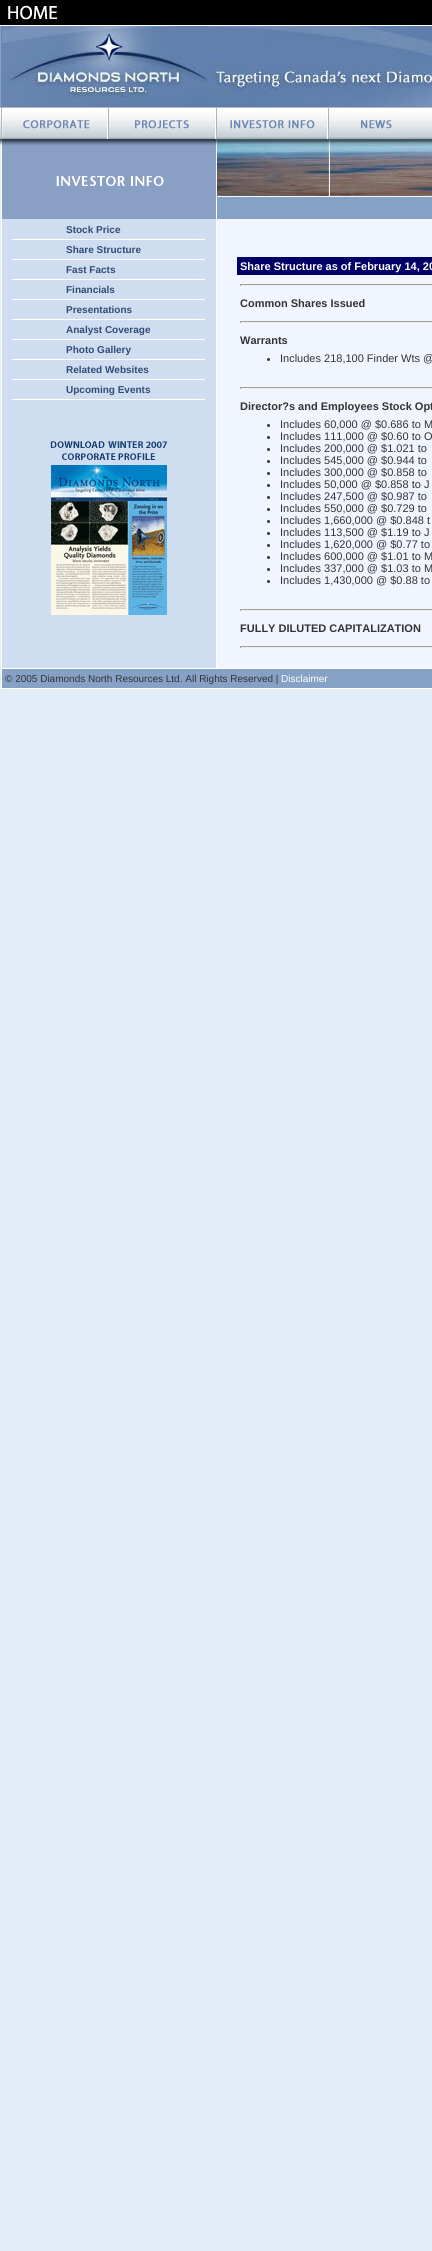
#include <cairo.h>
#include <math.h>
#include <stddef.h>

typedef struct { double x, y, w, h; unsigned color; } box_t;

static void ink(cairo_t *ctx, unsigned color) {
    cairo_set_source_rgb(ctx, (color >> 16) / 255.0, (color >> 8 & 255) / 255.0, (color & 255) / 255.0);
}

static void paste(cairo_t *ctx, const char *path, double x, double y, double w, double h) {
    cairo_surface_t *image = cairo_image_surface_create_from_png(path);
    cairo_save(ctx);
    cairo_set_source_surface(ctx, image, x, y);
    cairo_rectangle(ctx, x, y, w, h);
    cairo_fill(ctx);
    cairo_restore(ctx);
    cairo_surface_destroy(image);
}

int main(void) {
    cairo_surface_t *surface = cairo_image_surface_create(CAIRO_FORMAT_RGB24, 432, 2251);
    cairo_t *ctx = cairo_create(surface);
    cairo_font_options_t *options = cairo_font_options_create();
    cairo_font_options_set_hint_metrics(options, CAIRO_HINT_METRICS_OFF);
    cairo_font_options_set_hint_style(options, CAIRO_HINT_STYLE_NONE);
    cairo_set_font_options(ctx, options);
    cairo_set_miter_limit(ctx, 4);
    ink(ctx, 0xE2EDF8);
    cairo_paint(ctx);
    ink(ctx, 0x000000);
    cairo_rectangle(ctx, 0, 0, 432, 25);
    cairo_fill(ctx);
    paste(ctx, "media/1.png", 8, 5, 49, 15);
    ink(ctx, 0xFFFFFF);
    cairo_rectangle(ctx, 0, 25, 432, 1);
    cairo_fill(ctx);
    ink(ctx, 0x86A1C6);
    cairo_rectangle(ctx, 0, 26, 1, 81);
    cairo_fill(ctx);
    paste(ctx, "media/2.png", 1, 26, 431, 81);
    ink(ctx, 0xB1BBC5);
    cairo_rectangle(ctx, 0, 107, 432, 1);
    cairo_fill(ctx);
    paste(ctx, "media/3.png", 0, 108, 1, 31);
    paste(ctx, "media/4.png", 1, 108, 107, 31);
    paste(ctx, "media/5.png", 108, 108, 108, 31);
    paste(ctx, "media/6.png", 216, 108, 112, 31);
    paste(ctx, "media/7.png", 328, 108, 104, 31);
    paste(ctx, "media/8.png", 0, 139, 1, 7);
    paste(ctx, "media/9.png", 1, 139, 1, 80);
    paste(ctx, "media/10.png", 2, 139, 215, 80);
    paste(ctx, "media/11.png", 217, 139, 215, 57);
    {
        static const box_t items[] = {
            {217, 196, 215, 1, 0xF0F5FF},
            {217, 197, 215, 22, 0x86A1C6},
            {1, 219, 1, 470, 0xFFFFFF},
            {2, 219, 214, 449, 0xCEDDEF},
        };
        for (size_t i = 0; i < sizeof items / sizeof *items; i++) {
            ink(ctx, items[i].color);
            cairo_rectangle(ctx, items[i].x, items[i].y, items[i].w, items[i].h);
            cairo_fill(ctx);
        }
    }
    cairo_select_font_face(ctx, "Liberation Sans", CAIRO_FONT_SLANT_NORMAL, CAIRO_FONT_WEIGHT_BOLD);
    cairo_set_font_size(ctx, 10);
    ink(ctx, 0x344A77);
    cairo_move_to(ctx, 66, 233);
    cairo_show_text(ctx, "Stock Price");
    ink(ctx, 0xFFFFFF);
    cairo_rectangle(ctx, 12, 239, 193, 1);
    cairo_fill(ctx);
    ink(ctx, 0x344A77);
    cairo_move_to(ctx, 66, 253);
    cairo_show_text(ctx, "Share Structure");
    ink(ctx, 0xFFFFFF);
    cairo_rectangle(ctx, 12, 259, 193, 1);
    cairo_fill(ctx);
    ink(ctx, 0x344A77);
    cairo_move_to(ctx, 66, 273);
    cairo_show_text(ctx, "Fast Facts");
    ink(ctx, 0xFFFFFF);
    cairo_rectangle(ctx, 12, 279, 193, 1);
    cairo_fill(ctx);
    ink(ctx, 0x344A77);
    cairo_move_to(ctx, 66, 293);
    cairo_show_text(ctx, "Financials");
    ink(ctx, 0xFFFFFF);
    cairo_rectangle(ctx, 12, 299, 193, 1);
    cairo_fill(ctx);
    ink(ctx, 0x344A77);
    cairo_move_to(ctx, 66, 313);
    cairo_show_text(ctx, "Presentations");
    ink(ctx, 0xFFFFFF);
    cairo_rectangle(ctx, 12, 319, 193, 1);
    cairo_fill(ctx);
    ink(ctx, 0x344A77);
    cairo_move_to(ctx, 66, 333);
    cairo_show_text(ctx, "Analyst Coverage");
    ink(ctx, 0xFFFFFF);
    cairo_rectangle(ctx, 12, 339, 193, 1);
    cairo_fill(ctx);
    ink(ctx, 0x344A77);
    cairo_move_to(ctx, 66, 353);
    cairo_show_text(ctx, "Photo Gallery");
    ink(ctx, 0xFFFFFF);
    cairo_rectangle(ctx, 12, 359, 193, 1);
    cairo_fill(ctx);
    ink(ctx, 0x344A77);
    cairo_move_to(ctx, 66, 373);
    cairo_show_text(ctx, "Related Websites");
    ink(ctx, 0xFFFFFF);
    cairo_rectangle(ctx, 12, 379, 193, 1);
    cairo_fill(ctx);
    ink(ctx, 0x344A77);
    cairo_move_to(ctx, 66, 393);
    cairo_show_text(ctx, "Upcoming Events");
    ink(ctx, 0xFFFFFF);
    cairo_rectangle(ctx, 12, 399, 193, 1);
    cairo_fill(ctx);
    paste(ctx, "media/12.png", 50, 441, 117, 174);
    {
        static const box_t items[] = {
            {216, 219, 1, 449, 0xFFFFFF},
            {217, 219, 215, 449, 0xF0F5FF},
            {237, 257, 195, 18, 0x000066},
        };
        for (size_t i = 0; i < sizeof items / sizeof *items; i++) {
            ink(ctx, items[i].color);
            cairo_rectangle(ctx, items[i].x, items[i].y, items[i].w, items[i].h);
            cairo_fill(ctx);
        }
    }
    cairo_set_font_size(ctx, 11);
    ink(ctx, 0xFFFFFF);
    cairo_move_to(ctx, 240, 270);
    cairo_show_text(ctx, "Share Structure as of February 14, 20");
    {
        static const box_t items[] = {
            {240, 284, 192, 1, 0x9F9F9F},
            {240, 285, 192, 1, 0xEEEEEE},
            {240, 284, 1, 2, 0x9F9F9F},
        };
        for (size_t i = 0; i < sizeof items / sizeof *items; i++) {
            ink(ctx, items[i].color);
            cairo_rectangle(ctx, items[i].x, items[i].y, items[i].w, items[i].h);
            cairo_fill(ctx);
        }
    }
    ink(ctx, 0x333333);
    cairo_move_to(ctx, 240, 307);
    cairo_show_text(ctx, "Common Shares Issued");
    {
        static const box_t items[] = {
            {240, 321, 192, 1, 0x9F9F9F},
            {240, 322, 192, 1, 0xEEEEEE},
            {240, 321, 1, 2, 0x9F9F9F},
        };
        for (size_t i = 0; i < sizeof items / sizeof *items; i++) {
            ink(ctx, items[i].color);
            cairo_rectangle(ctx, items[i].x, items[i].y, items[i].w, items[i].h);
            cairo_fill(ctx);
        }
    }
    ink(ctx, 0x333333);
    cairo_move_to(ctx, 240, 344);
    cairo_show_text(ctx, "Warrants");
    cairo_new_path(ctx);
    cairo_arc(ctx, 268.5, 359.5, 1.5, 0, 2 * M_PI);
    cairo_fill(ctx);
    cairo_select_font_face(ctx, "Liberation Sans", CAIRO_FONT_SLANT_NORMAL, CAIRO_FONT_WEIGHT_NORMAL);
    cairo_move_to(ctx, 280, 362);
    cairo_show_text(ctx, "Includes 218,100 Finder Wts @");
    {
        static const box_t items[] = {
            {240, 387, 192, 1, 0x9F9F9F},
            {240, 388, 192, 1, 0xEEEEEE},
            {240, 387, 1, 2, 0x9F9F9F},
        };
        for (size_t i = 0; i < sizeof items / sizeof *items; i++) {
            ink(ctx, items[i].color);
            cairo_rectangle(ctx, items[i].x, items[i].y, items[i].w, items[i].h);
            cairo_fill(ctx);
        }
    }
    cairo_select_font_face(ctx, "Liberation Sans", CAIRO_FONT_SLANT_NORMAL, CAIRO_FONT_WEIGHT_BOLD);
    ink(ctx, 0x333333);
    cairo_move_to(ctx, 240, 410);
    cairo_show_text(ctx, "Director?s and Employees Stock Opt");
    cairo_new_path(ctx);
    cairo_arc(ctx, 268.5, 425.5, 1.5, 0, 2 * M_PI);
    cairo_fill(ctx);
    cairo_select_font_face(ctx, "Liberation Sans", CAIRO_FONT_SLANT_NORMAL, CAIRO_FONT_WEIGHT_NORMAL);
    cairo_move_to(ctx, 280, 428);
    cairo_show_text(ctx, "Includes 60,000 @ $0.686 to M");
    cairo_new_path(ctx);
    cairo_arc(ctx, 268.5, 437.5, 1.5, 0, 2 * M_PI);
    cairo_fill(ctx);
    cairo_move_to(ctx, 280, 440);
    cairo_show_text(ctx, "Includes 111,000 @ $0.60 to O");
    cairo_new_path(ctx);
    cairo_arc(ctx, 268.5, 449.5, 1.5, 0, 2 * M_PI);
    cairo_fill(ctx);
    cairo_move_to(ctx, 280, 452);
    cairo_show_text(ctx, "Includes 200,000 @ $1.021 to");
    cairo_new_path(ctx);
    cairo_arc(ctx, 268.5, 461.5, 1.5, 0, 2 * M_PI);
    cairo_fill(ctx);
    cairo_move_to(ctx, 280, 464);
    cairo_show_text(ctx, "Includes 545,000 @ $0.944 to");
    cairo_new_path(ctx);
    cairo_arc(ctx, 268.5, 473.5, 1.5, 0, 2 * M_PI);
    cairo_fill(ctx);
    cairo_move_to(ctx, 280, 476);
    cairo_show_text(ctx, "Includes 300,000 @ $0.858 to");
    cairo_new_path(ctx);
    cairo_arc(ctx, 268.5, 485.5, 1.5, 0, 2 * M_PI);
    cairo_fill(ctx);
    cairo_move_to(ctx, 280, 488);
    cairo_show_text(ctx, "Includes 50,000 @ $0.858 to J");
    cairo_new_path(ctx);
    cairo_arc(ctx, 268.5, 497.5, 1.5, 0, 2 * M_PI);
    cairo_fill(ctx);
    cairo_move_to(ctx, 280, 500);
    cairo_show_text(ctx, "Includes 247,500 @ $0.987 to");
    cairo_new_path(ctx);
    cairo_arc(ctx, 268.5, 509.5, 1.5, 0, 2 * M_PI);
    cairo_fill(ctx);
    cairo_move_to(ctx, 280, 512);
    cairo_show_text(ctx, "Includes 550,000 @ $0.729 to");
    cairo_new_path(ctx);
    cairo_arc(ctx, 268.5, 521.5, 1.5, 0, 2 * M_PI);
    cairo_fill(ctx);
    cairo_move_to(ctx, 280, 524);
    cairo_show_text(ctx, "Includes 1,660,000 @ $0.848 t");
    cairo_new_path(ctx);
    cairo_arc(ctx, 268.5, 533.5, 1.5, 0, 2 * M_PI);
    cairo_fill(ctx);
    cairo_move_to(ctx, 280, 536);
    cairo_show_text(ctx, "Includes 113,500 @ $1.19 to J");
    cairo_new_path(ctx);
    cairo_arc(ctx, 268.5, 545.5, 1.5, 0, 2 * M_PI);
    cairo_fill(ctx);
    cairo_move_to(ctx, 280, 548);
    cairo_show_text(ctx, "Includes 1,620,000 @ $0.77 to");
    cairo_new_path(ctx);
    cairo_arc(ctx, 268.5, 557.5, 1.5, 0, 2 * M_PI);
    cairo_fill(ctx);
    cairo_move_to(ctx, 280, 560);
    cairo_show_text(ctx, "Includes 600,000 @ $1.01 to M");
    cairo_new_path(ctx);
    cairo_arc(ctx, 268.5, 569.5, 1.5, 0, 2 * M_PI);
    cairo_fill(ctx);
    cairo_move_to(ctx, 280, 572);
    cairo_show_text(ctx, "Includes 337,000 @ $1.03 to M");
    cairo_new_path(ctx);
    cairo_arc(ctx, 268.5, 581.5, 1.5, 0, 2 * M_PI);
    cairo_fill(ctx);
    cairo_move_to(ctx, 280, 584);
    cairo_show_text(ctx, "Includes 1,430,000 @ $0.88 to");
    {
        static const box_t items[] = {
            {240, 609, 192, 1, 0x9F9F9F},
            {240, 610, 192, 1, 0xEEEEEE},
            {240, 609, 1, 2, 0x9F9F9F},
        };
        for (size_t i = 0; i < sizeof items / sizeof *items; i++) {
            ink(ctx, items[i].color);
            cairo_rectangle(ctx, items[i].x, items[i].y, items[i].w, items[i].h);
            cairo_fill(ctx);
        }
    }
    cairo_select_font_face(ctx, "Liberation Sans", CAIRO_FONT_SLANT_NORMAL, CAIRO_FONT_WEIGHT_BOLD);
    ink(ctx, 0x333333);
    cairo_move_to(ctx, 240, 632);
    cairo_show_text(ctx, "FULLY DILUTED CAPITALIZATION");
    {
        static const box_t items[] = {
            {240, 646, 192, 1, 0x9F9F9F},
            {240, 647, 192, 1, 0xEEEEEE},
            {240, 646, 1, 2, 0x9F9F9F},
            {2, 668, 430, 1, 0xFFFFFF},
            {2, 669, 430, 19, 0x86A1C6},
        };
        for (size_t i = 0; i < sizeof items / sizeof *items; i++) {
            ink(ctx, items[i].color);
            cairo_rectangle(ctx, items[i].x, items[i].y, items[i].w, items[i].h);
            cairo_fill(ctx);
        }
    }
    cairo_select_font_face(ctx, "Liberation Sans", CAIRO_FONT_SLANT_NORMAL, CAIRO_FONT_WEIGHT_NORMAL);
    cairo_set_font_size(ctx, 10);
    ink(ctx, 0x333333);
    cairo_move_to(ctx, 5, 682);
    cairo_show_text(ctx, "© 2005 Diamonds North Resources Ltd. All Rights Reserved |");
    ink(ctx, 0xFFFFFF);
    cairo_move_to(ctx, 281, 682);
    cairo_show_text(ctx, "Disclaimer");
    cairo_rectangle(ctx, 2, 688, 430, 1);
    cairo_fill(ctx);
    cairo_surface_write_to_png(surface, "image.png");
    cairo_font_options_destroy(options);
    cairo_destroy(ctx);
    cairo_surface_destroy(surface);
    return 0;
}
